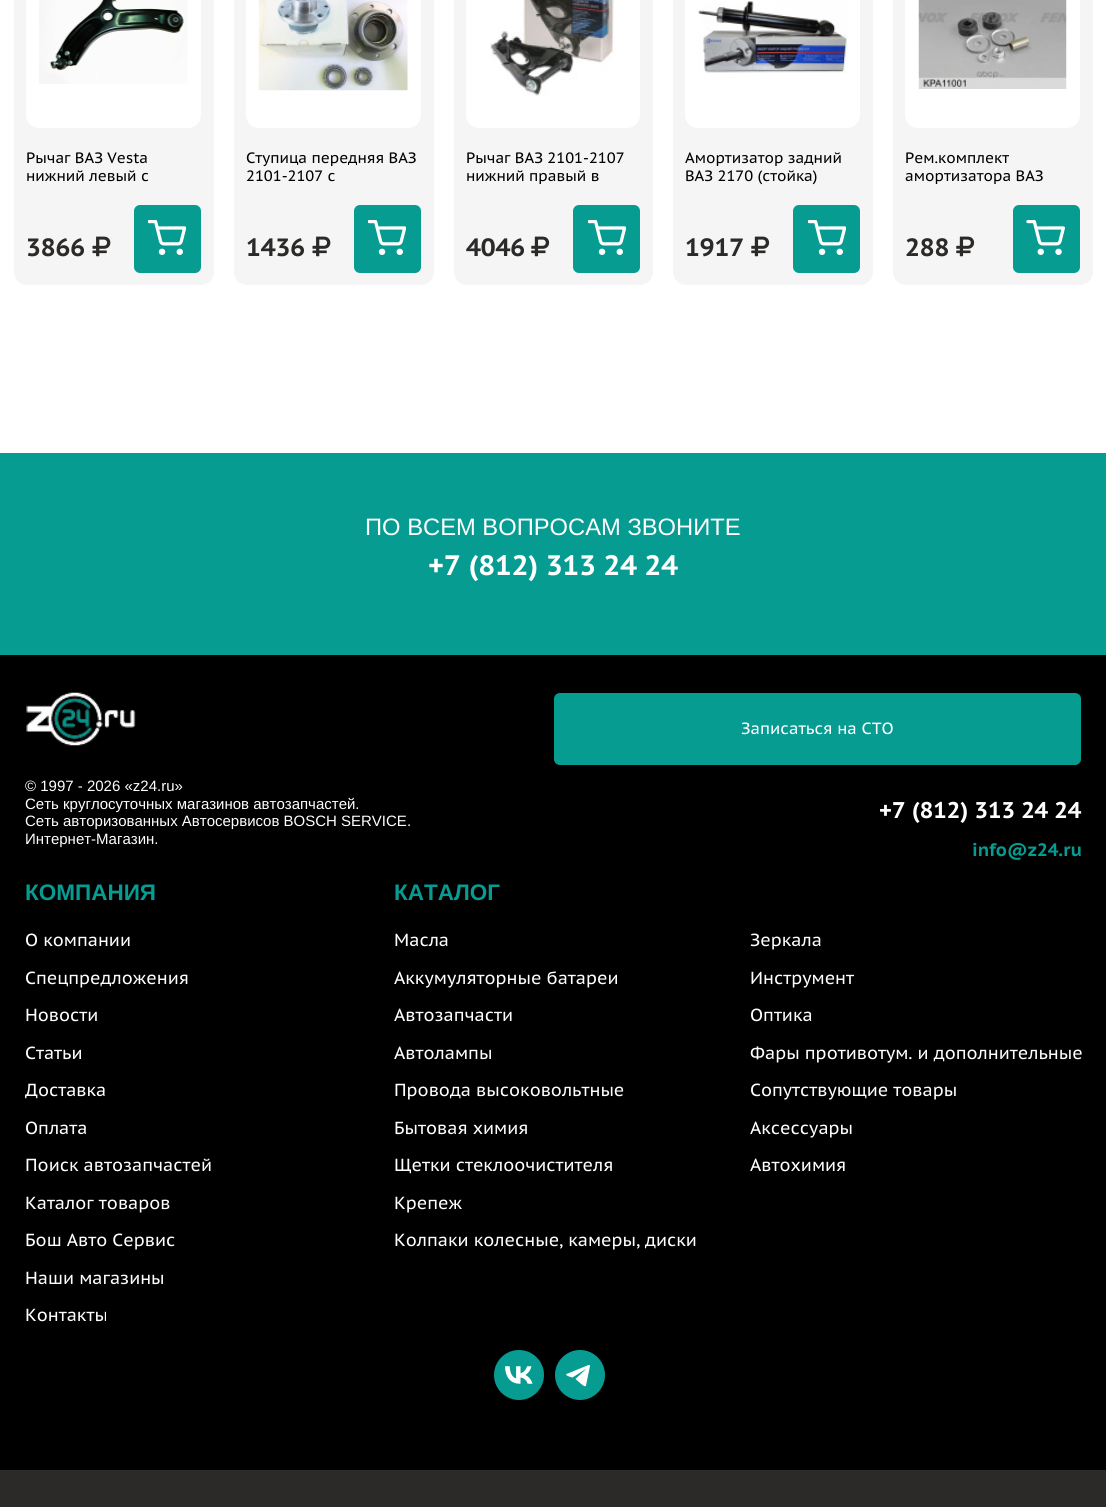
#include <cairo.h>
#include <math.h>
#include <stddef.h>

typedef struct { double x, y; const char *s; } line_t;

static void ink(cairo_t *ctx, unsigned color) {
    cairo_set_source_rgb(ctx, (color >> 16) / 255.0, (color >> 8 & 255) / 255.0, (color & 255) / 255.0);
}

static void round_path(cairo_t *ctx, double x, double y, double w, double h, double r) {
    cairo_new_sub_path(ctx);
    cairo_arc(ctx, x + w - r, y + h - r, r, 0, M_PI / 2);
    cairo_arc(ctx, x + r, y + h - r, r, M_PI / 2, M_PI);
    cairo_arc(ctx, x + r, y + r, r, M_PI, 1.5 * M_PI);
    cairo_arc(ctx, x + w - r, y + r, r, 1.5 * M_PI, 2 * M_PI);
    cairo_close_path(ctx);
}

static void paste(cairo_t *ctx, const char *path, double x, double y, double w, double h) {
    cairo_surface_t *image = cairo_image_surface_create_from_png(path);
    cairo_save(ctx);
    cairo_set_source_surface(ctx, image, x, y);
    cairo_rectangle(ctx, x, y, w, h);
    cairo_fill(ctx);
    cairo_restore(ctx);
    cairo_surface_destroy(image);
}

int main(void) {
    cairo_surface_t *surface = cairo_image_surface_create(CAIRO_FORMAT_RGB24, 1106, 1507);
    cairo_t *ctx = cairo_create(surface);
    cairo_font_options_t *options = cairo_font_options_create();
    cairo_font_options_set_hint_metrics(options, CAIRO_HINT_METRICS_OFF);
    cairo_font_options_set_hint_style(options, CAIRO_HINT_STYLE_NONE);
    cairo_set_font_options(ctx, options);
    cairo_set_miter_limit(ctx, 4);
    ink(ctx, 0xFFFFFF);
    cairo_paint(ctx);
    ink(ctx, 0xF5F5F5);
    round_path(ctx, 14, -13, 200, 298, 13);
    cairo_fill(ctx);
    ink(ctx, 0xFFFFFF);
    round_path(ctx, 26, -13, 175, 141, 13);
    cairo_fill(ctx);
    paste(ctx, "media/1.png", 39, 0, 149, 84);
    cairo_select_font_face(ctx, "PT Sans Caption", CAIRO_FONT_SLANT_NORMAL, CAIRO_FONT_WEIGHT_NORMAL);
    cairo_set_font_size(ctx, 15);
    ink(ctx, 0x000000);
    cairo_move_to(ctx, 26, 163);
    cairo_show_text(ctx, "Рычаг ВАЗ Vesta");
    cairo_move_to(ctx, 26, 181);
    cairo_show_text(ctx, "нижний левый с");
    cairo_select_font_face(ctx, "PT Sans Caption", CAIRO_FONT_SLANT_NORMAL, CAIRO_FONT_WEIGHT_BOLD);
    cairo_set_font_size(ctx, 25);
    ink(ctx, 0x2B2A29);
    cairo_move_to(ctx, 26, 256);
    cairo_show_text(ctx, "3866");
    paste(ctx, "media/2.png", 92, 236, 19, 21);
    ink(ctx, 0x069C92);
    round_path(ctx, 134, 205, 67, 68, 6);
    cairo_fill(ctx);
    paste(ctx, "media/3.png", 148, 220, 38, 35);
    ink(ctx, 0xF5F5F5);
    round_path(ctx, 234, -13, 200, 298, 13);
    cairo_fill(ctx);
    ink(ctx, 0xFFFFFF);
    round_path(ctx, 246, -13, 175, 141, 13);
    cairo_fill(ctx);
    paste(ctx, "media/4.png", 258, 0, 150, 91);
    cairo_select_font_face(ctx, "PT Sans Caption", CAIRO_FONT_SLANT_NORMAL, CAIRO_FONT_WEIGHT_NORMAL);
    cairo_set_font_size(ctx, 15);
    ink(ctx, 0x000000);
    cairo_move_to(ctx, 246, 163);
    cairo_show_text(ctx, "Ступица передняя ВАЗ");
    cairo_move_to(ctx, 246, 181);
    cairo_show_text(ctx, "2101-2107 с");
    cairo_select_font_face(ctx, "PT Sans Caption", CAIRO_FONT_SLANT_NORMAL, CAIRO_FONT_WEIGHT_BOLD);
    cairo_set_font_size(ctx, 25);
    ink(ctx, 0x2B2A29);
    cairo_move_to(ctx, 246, 256);
    cairo_show_text(ctx, "1436");
    paste(ctx, "media/2.png", 312, 236, 19, 21);
    ink(ctx, 0x069C92);
    round_path(ctx, 354, 205, 67, 68, 6);
    cairo_fill(ctx);
    paste(ctx, "media/3.png", 368, 220, 38, 35);
    ink(ctx, 0xF5F5F5);
    round_path(ctx, 454, -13, 199, 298, 13);
    cairo_fill(ctx);
    ink(ctx, 0xFFFFFF);
    round_path(ctx, 466, -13, 174, 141, 13);
    cairo_fill(ctx);
    paste(ctx, "media/5.png", 490, 0, 125, 96);
    cairo_select_font_face(ctx, "PT Sans Caption", CAIRO_FONT_SLANT_NORMAL, CAIRO_FONT_WEIGHT_NORMAL);
    cairo_set_font_size(ctx, 15);
    ink(ctx, 0x000000);
    cairo_move_to(ctx, 466, 163);
    cairo_show_text(ctx, "Рычаг ВАЗ 2101-2107");
    cairo_move_to(ctx, 466, 181);
    cairo_show_text(ctx, "нижний правый в");
    cairo_select_font_face(ctx, "PT Sans Caption", CAIRO_FONT_SLANT_NORMAL, CAIRO_FONT_WEIGHT_BOLD);
    cairo_set_font_size(ctx, 25);
    ink(ctx, 0x2B2A29);
    cairo_move_to(ctx, 466, 256);
    cairo_show_text(ctx, "4046");
    paste(ctx, "media/6.png", 531, 236, 19, 21);
    ink(ctx, 0x069C92);
    round_path(ctx, 573, 205, 67, 68, 6);
    cairo_fill(ctx);
    paste(ctx, "media/3.png", 588, 220, 38, 35);
    ink(ctx, 0xF5F5F5);
    round_path(ctx, 673, -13, 200, 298, 13);
    cairo_fill(ctx);
    ink(ctx, 0xFFFFFF);
    round_path(ctx, 685, -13, 175, 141, 13);
    cairo_fill(ctx);
    paste(ctx, "media/7.png", 698, 1, 150, 72);
    cairo_select_font_face(ctx, "PT Sans Caption", CAIRO_FONT_SLANT_NORMAL, CAIRO_FONT_WEIGHT_NORMAL);
    cairo_set_font_size(ctx, 15);
    ink(ctx, 0x000000);
    cairo_move_to(ctx, 685, 163);
    cairo_show_text(ctx, "Амортизатор задний");
    cairo_move_to(ctx, 685, 181);
    cairo_show_text(ctx, "ВАЗ 2170 (стойка)");
    cairo_select_font_face(ctx, "PT Sans Caption", CAIRO_FONT_SLANT_NORMAL, CAIRO_FONT_WEIGHT_BOLD);
    cairo_set_font_size(ctx, 25);
    ink(ctx, 0x2B2A29);
    cairo_move_to(ctx, 685, 256);
    cairo_show_text(ctx, "1917");
    paste(ctx, "media/6.png", 751, 236, 19, 21);
    ink(ctx, 0x069C92);
    round_path(ctx, 793, 205, 67, 68, 6);
    cairo_fill(ctx);
    paste(ctx, "media/3.png", 808, 220, 38, 35);
    ink(ctx, 0xF5F5F5);
    round_path(ctx, 893, -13, 200, 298, 13);
    cairo_fill(ctx);
    ink(ctx, 0xFFFFFF);
    round_path(ctx, 905, -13, 175, 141, 13);
    cairo_fill(ctx);
    paste(ctx, "media/8.png", 918, 0, 149, 89);
    cairo_select_font_face(ctx, "PT Sans Caption", CAIRO_FONT_SLANT_NORMAL, CAIRO_FONT_WEIGHT_NORMAL);
    cairo_set_font_size(ctx, 15);
    ink(ctx, 0x000000);
    cairo_move_to(ctx, 905, 163);
    cairo_show_text(ctx, "Рем.комплект");
    cairo_move_to(ctx, 905, 181);
    cairo_show_text(ctx, "амортизатора ВАЗ");
    cairo_select_font_face(ctx, "PT Sans Caption", CAIRO_FONT_SLANT_NORMAL, CAIRO_FONT_WEIGHT_BOLD);
    cairo_set_font_size(ctx, 25);
    ink(ctx, 0x2B2A29);
    cairo_move_to(ctx, 905, 256);
    cairo_show_text(ctx, "288");
    paste(ctx, "media/6.png", 956, 236, 19, 21);
    ink(ctx, 0x069C92);
    round_path(ctx, 1013, 205, 67, 68, 6);
    cairo_fill(ctx);
    paste(ctx, "media/9.png", 1026, 220, 39, 35);
    cairo_rectangle(ctx, 0, 453, 1106, 202);
    cairo_fill(ctx);
    cairo_select_font_face(ctx, "Liberation Sans", CAIRO_FONT_SLANT_NORMAL, CAIRO_FONT_WEIGHT_NORMAL);
    cairo_set_font_size(ctx, 23.75);
    ink(ctx, 0xFFFFFF);
    cairo_move_to(ctx, 365, 535);
    cairo_show_text(ctx, "ПО ВСЕМ ВОПРОСАМ ЗВОНИТЕ");
    cairo_select_font_face(ctx, "PT Sans Caption", CAIRO_FONT_SLANT_NORMAL, CAIRO_FONT_WEIGHT_BOLD);
    cairo_set_font_size(ctx, 28.1);
    cairo_move_to(ctx, 428, 575);
    cairo_show_text(ctx, "+7 (812) 313 24 24");
    ink(ctx, 0x000000);
    cairo_rectangle(ctx, 0, 655, 1106, 815);
    cairo_fill(ctx);
    paste(ctx, "media/10.png", 26, 692, 110, 54);
    cairo_select_font_face(ctx, "Liberation Sans", CAIRO_FONT_SLANT_NORMAL, CAIRO_FONT_WEIGHT_NORMAL);
    cairo_set_font_size(ctx, 15);
    ink(ctx, 0xFFFFFF);
    {
        static const line_t items[] = {
            {25, 791, "© 1997 - 2026 «z24.ru»"},
            {25, 809, "Cеть круглосуточных магазинов автозапчастей."},
            {25, 826, "Сеть авторизованных Автосервисов BOSCH SERVICE."},
            {25, 844, "Интернет-Магазин."},
        };
        for (size_t i = 0; i < sizeof items / sizeof *items; i++) {
            cairo_move_to(ctx, items[i].x, items[i].y);
            cairo_show_text(ctx, items[i].s);
        }
    }
    ink(ctx, 0x069C92);
    round_path(ctx, 554.5, 693.5, 526, 71, 5.5);
    cairo_fill_preserve(ctx);
    cairo_set_line_width(ctx, 1);
    cairo_stroke(ctx);
    cairo_select_font_face(ctx, "PT Sans Caption", CAIRO_FONT_SLANT_NORMAL, CAIRO_FONT_WEIGHT_NORMAL);
    cairo_set_font_size(ctx, 16.25);
    ink(ctx, 0xFFFFFF);
    cairo_move_to(ctx, 741, 734);
    cairo_show_text(ctx, "Записаться на СТО");
    cairo_select_font_face(ctx, "PT Sans Caption", CAIRO_FONT_SLANT_NORMAL, CAIRO_FONT_WEIGHT_BOLD);
    cairo_set_font_size(ctx, 22.75);
    cairo_move_to(ctx, 879, 818);
    cairo_show_text(ctx, "+7 (812) 313 24 24");
    cairo_set_font_size(ctx, 18);
    ink(ctx, 0x069C92);
    cairo_move_to(ctx, 972, 856);
    cairo_show_text(ctx, "info@z24.ru");
    cairo_select_font_face(ctx, "Liberation Sans", CAIRO_FONT_SLANT_NORMAL, CAIRO_FONT_WEIGHT_BOLD);
    cairo_set_font_size(ctx, 22.5);
    cairo_move_to(ctx, 25, 900);
    cairo_show_text(ctx, "КОМПАНИЯ");
    cairo_select_font_face(ctx, "PT Sans Caption", CAIRO_FONT_SLANT_NORMAL, CAIRO_FONT_WEIGHT_NORMAL);
    cairo_set_font_size(ctx, 17.5);
    ink(ctx, 0xFFFFFF);
    {
        static const line_t items[] = {
            {25, 946, "О компании"},
            {25, 984, "Спецпредложения"},
            {25, 1021, "Новости"},
            {25, 1059, "Статьи"},
            {25, 1096, "Доставка"},
            {25, 1134, "Оплата"},
            {25, 1171, "Поиск автозапчастей"},
            {25, 1209, "Каталог товаров"},
            {25, 1246, "Бош Авто Сервис"},
            {25, 1284, "Наши магазины"},
            {25, 1321, "Контакты"},
        };
        for (size_t i = 0; i < sizeof items / sizeof *items; i++) {
            cairo_move_to(ctx, items[i].x, items[i].y);
            cairo_show_text(ctx, items[i].s);
        }
    }
    cairo_select_font_face(ctx, "Liberation Sans", CAIRO_FONT_SLANT_NORMAL, CAIRO_FONT_WEIGHT_BOLD);
    cairo_set_font_size(ctx, 22.5);
    ink(ctx, 0x069C92);
    cairo_move_to(ctx, 394, 900);
    cairo_show_text(ctx, "КАТАЛОГ");
    cairo_select_font_face(ctx, "PT Sans Caption", CAIRO_FONT_SLANT_NORMAL, CAIRO_FONT_WEIGHT_NORMAL);
    cairo_set_font_size(ctx, 17.5);
    ink(ctx, 0xFFFFFF);
    {
        static const line_t items[] = {
            {394, 946, "Масла"},
            {394, 984, "Аккумуляторные батареи"},
            {394, 1021, "Автозапчасти"},
            {394, 1059, "Автолампы"},
            {394, 1096, "Провода высоковольтные"},
            {394, 1134, "Бытовая химия"},
            {394, 1171, "Щетки стеклоочистителя"},
            {394, 1209, "Крепеж"},
            {394, 1246, "Колпаки колесные, камеры, диски"},
            {750, 946, "Зеркала"},
            {750, 984, "Инструмент"},
            {750, 1021, "Оптика"},
            {750, 1059, "Фары противотум. и дополнительные"},
            {750, 1096, "Сопутствующие товары"},
            {750, 1134, "Аксессуары"},
            {750, 1171, "Автохимия"},
        };
        for (size_t i = 0; i < sizeof items / sizeof *items; i++) {
            cairo_move_to(ctx, items[i].x, items[i].y);
            cairo_show_text(ctx, items[i].s);
        }
    }
    paste(ctx, "media/11.png", 494, 1350, 50, 50);
    ink(ctx, 0x069C92);
    cairo_arc(ctx, 580, 1375, 25, 0, 2 * M_PI);
    cairo_fill(ctx);
    ink(ctx, 0xFEFEFE);
    cairo_new_path(ctx);
    cairo_move_to(ctx, 590, 1366);
    cairo_line_to(ctx, 586, 1385.5);
    cairo_curve_to(ctx, 585.5, 1389, 577, 1380, 575.5, 1379);
    cairo_line_to(ctx, 585.5, 1369.5);
    cairo_line_to(ctx, 586.5, 1368.5);
    cairo_line_to(ctx, 572.5, 1377.5);
    cairo_curve_to(ctx, 572, 1377.5, 564.5, 1375.5, 566.5, 1374);
    cairo_line_to(ctx, 588.5, 1365);
    cairo_curve_to(ctx, 589, 1365, 590, 1364.5, 590, 1366);
    cairo_close_path(ctx);
    cairo_fill(ctx);
    ink(ctx, 0x2B2A29);
    cairo_rectangle(ctx, 0, 1470, 1106, 37);
    cairo_fill(ctx);
    cairo_surface_write_to_png(surface, "image.png");
    cairo_font_options_destroy(options);
    cairo_destroy(ctx);
    cairo_surface_destroy(surface);
    return 0;
}
